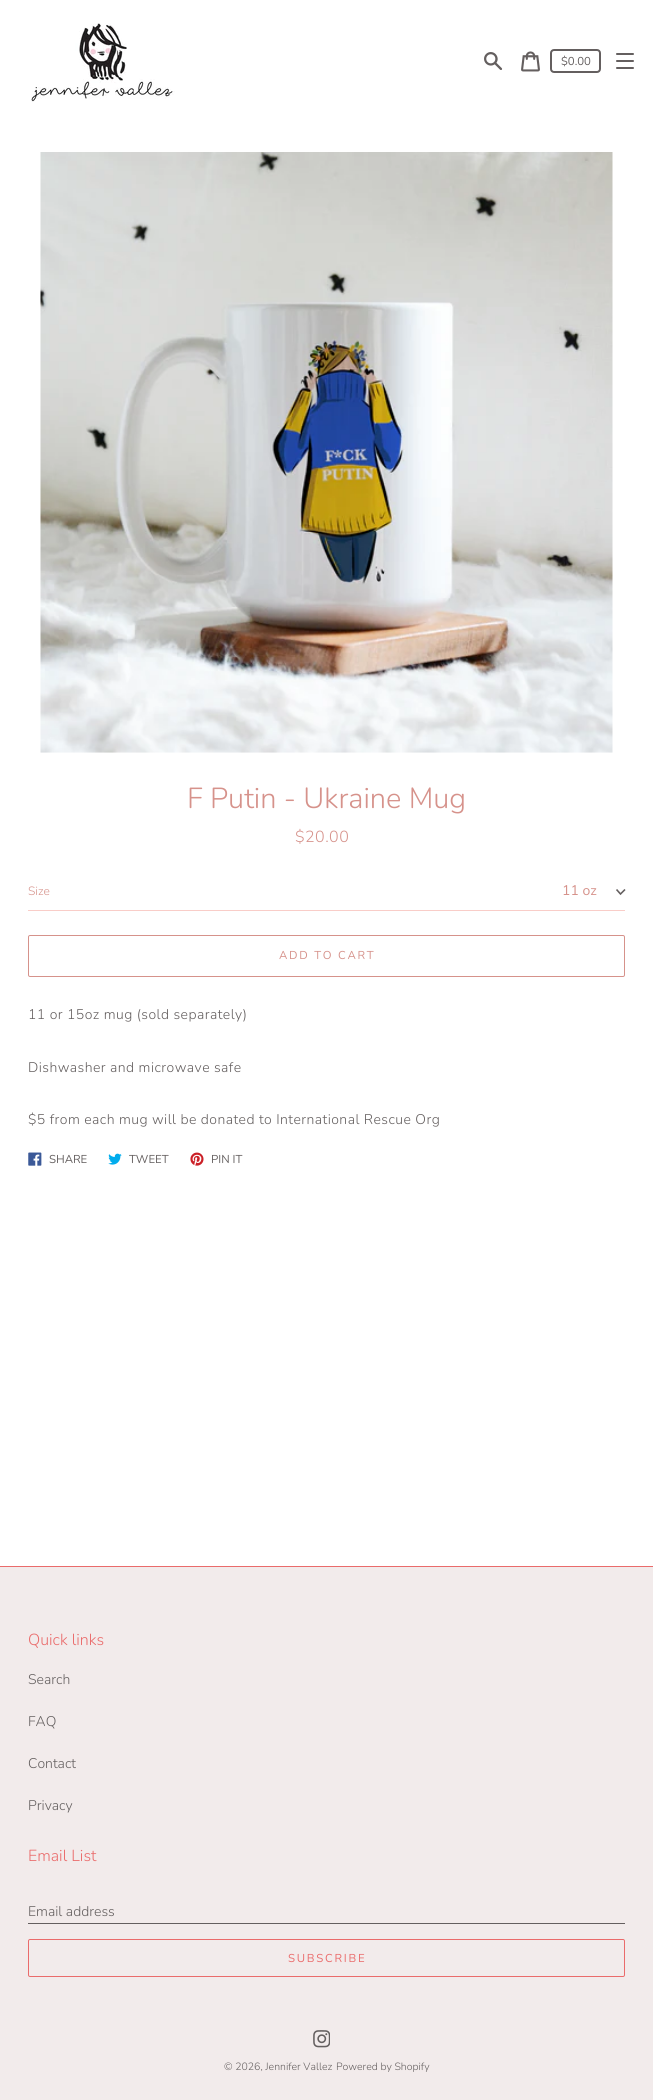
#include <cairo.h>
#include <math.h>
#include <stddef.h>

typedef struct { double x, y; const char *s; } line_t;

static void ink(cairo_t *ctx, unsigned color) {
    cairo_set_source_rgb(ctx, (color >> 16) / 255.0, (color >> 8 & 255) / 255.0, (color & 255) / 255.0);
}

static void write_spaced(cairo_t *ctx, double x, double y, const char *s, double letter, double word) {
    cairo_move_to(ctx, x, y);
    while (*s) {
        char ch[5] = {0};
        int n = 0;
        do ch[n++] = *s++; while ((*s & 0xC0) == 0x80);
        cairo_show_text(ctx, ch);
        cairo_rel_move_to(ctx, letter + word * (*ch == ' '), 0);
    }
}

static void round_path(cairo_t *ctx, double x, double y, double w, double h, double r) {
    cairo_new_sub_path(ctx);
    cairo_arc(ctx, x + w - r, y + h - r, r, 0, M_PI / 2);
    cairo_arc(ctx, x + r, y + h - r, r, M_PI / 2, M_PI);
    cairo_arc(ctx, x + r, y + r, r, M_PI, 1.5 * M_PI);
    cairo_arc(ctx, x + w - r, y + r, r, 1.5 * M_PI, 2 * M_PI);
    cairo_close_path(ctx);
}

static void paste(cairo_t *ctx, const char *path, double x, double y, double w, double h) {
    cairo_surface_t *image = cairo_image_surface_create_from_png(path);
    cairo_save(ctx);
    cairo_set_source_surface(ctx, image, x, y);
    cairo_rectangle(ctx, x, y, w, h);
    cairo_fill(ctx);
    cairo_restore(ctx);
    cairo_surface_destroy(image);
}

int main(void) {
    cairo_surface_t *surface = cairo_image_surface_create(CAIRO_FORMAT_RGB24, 653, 2100);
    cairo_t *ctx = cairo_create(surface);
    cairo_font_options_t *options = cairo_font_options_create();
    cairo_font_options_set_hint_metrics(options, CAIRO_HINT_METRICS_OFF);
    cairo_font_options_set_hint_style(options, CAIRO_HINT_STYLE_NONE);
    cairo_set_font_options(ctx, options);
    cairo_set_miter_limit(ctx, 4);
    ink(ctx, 0xFFFFFF);
    cairo_paint(ctx);
    paste(ctx, "media/1.png", 31, 23, 144, 79);
    paste(ctx, "media/2.png", 484, 52, 19, 18);
    paste(ctx, "media/3.png", 521, 51, 19, 21);
    round_path(ctx, 551, 50, 49, 22, 3);
    ink(ctx, 0x645F5F);
    cairo_stroke(ctx);
    cairo_select_font_face(ctx, "Nunito", CAIRO_FONT_SLANT_NORMAL, CAIRO_FONT_WEIGHT_NORMAL);
    cairo_set_font_size(ctx, 11.4);
    cairo_move_to(ctx, 561, 65);
    cairo_show_text(ctx, "$0.00");
    round_path(ctx, 616, 60, 18, 2, 1);
    cairo_fill(ctx);
    round_path(ctx, 616, 53, 18, 2, 1);
    cairo_fill(ctx);
    round_path(ctx, 616, 67, 18, 2, 1);
    cairo_fill(ctx);
    paste(ctx, "media/4.png", 40, 152, 573, 601);
    cairo_select_font_face(ctx, "Nunito Light", CAIRO_FONT_SLANT_NORMAL, CAIRO_FONT_WEIGHT_NORMAL);
    cairo_set_font_size(ctx, 29);
    ink(ctx, 0xD6928B);
    cairo_move_to(ctx, 187, 808);
    cairo_show_text(ctx, "F Putin - Ukraine Mug");
    cairo_set_font_size(ctx, 16);
    write_spaced(ctx, 295, 842, "$20.00", 0.45, 0);
    ink(ctx, 0xF9CDC8);
    cairo_rectangle(ctx, 28, 910, 597, 1);
    cairo_fill(ctx);
    cairo_set_font_size(ctx, 12);
    ink(ctx, 0xD6928B);
    cairo_move_to(ctx, 28, 895);
    cairo_show_text(ctx, "Size");
    cairo_new_path(ctx);
    cairo_move_to(ctx, 616.5, 889.5);
    cairo_line_to(ctx, 620.5, 894);
    cairo_line_to(ctx, 625, 889.5);
    ink(ctx, 0x645F5F);
    cairo_set_line_width(ctx, 1.6);
    cairo_stroke(ctx);
    cairo_select_font_face(ctx, "Nunito", CAIRO_FONT_SLANT_NORMAL, CAIRO_FONT_WEIGHT_NORMAL);
    cairo_set_font_size(ctx, 14);
    ink(ctx, 0xD6928B);
    cairo_move_to(ctx, 562, 895);
    cairo_show_text(ctx, "11 oz");
    round_path(ctx, 28.5, 935.5, 596, 41, 1.5);
    cairo_set_line_width(ctx, 1);
    cairo_stroke(ctx);
    cairo_set_font_size(ctx, 11.4);
    write_spaced(ctx, 279, 959, "ADD TO CART", 1.75, 0);
    cairo_select_font_face(ctx, "Nunito Light", CAIRO_FONT_SLANT_NORMAL, CAIRO_FONT_WEIGHT_NORMAL);
    cairo_set_font_size(ctx, 14);
    ink(ctx, 0x645F5F);
    {
        static const line_t items[] = {
            {28, 1019, "11 or 15oz mug (sold separately)"},
            {28, 1072, "Dishwasher and microwave safe"},
            {28, 1124, "$5 from each mug will be donated to International Rescue Org"},
        };
        for (size_t i = 0; i < sizeof items / sizeof *items; i++) {
            write_spaced(ctx, items[i].x, items[i].y, items[i].s, 0.45, 0);
        }
    }
    paste(ctx, "media/5.png", 28, 1152, 14, 14);
    cairo_select_font_face(ctx, "Nunito", CAIRO_FONT_SLANT_NORMAL, CAIRO_FONT_WEIGHT_NORMAL);
    cairo_set_font_size(ctx, 11.4);
    cairo_move_to(ctx, 49, 1163);
    cairo_show_text(ctx, "SHARE");
    paste(ctx, "media/6.png", 108, 1153, 14, 12);
    cairo_move_to(ctx, 129, 1163);
    cairo_show_text(ctx, "TWEET");
    paste(ctx, "media/7.png", 190, 1152, 14, 14);
    cairo_move_to(ctx, 211, 1163);
    cairo_show_text(ctx, "PIN IT");
    ink(ctx, 0xF2EBEB);
    cairo_rectangle(ctx, 0, 1567, 653, 533);
    cairo_fill(ctx);
    ink(ctx, 0xEA6B6B);
    cairo_rectangle(ctx, 0, 1566, 653, 1);
    cairo_fill(ctx);
    cairo_select_font_face(ctx, "Nunito Light", CAIRO_FONT_SLANT_NORMAL, CAIRO_FONT_WEIGHT_NORMAL);
    cairo_set_font_size(ctx, 16);
    cairo_move_to(ctx, 28, 1645);
    cairo_show_text(ctx, "Quick links");
    cairo_set_font_size(ctx, 14);
    ink(ctx, 0x645F5F);
    {
        static const line_t items[] = {
            {28, 1684, "Search"},
            {28, 1726, "FAQ"},
            {28, 1768, "Contact"},
            {28, 1810, "Privacy"},
        };
        for (size_t i = 0; i < sizeof items / sizeof *items; i++) {
            cairo_move_to(ctx, items[i].x, items[i].y);
            cairo_show_text(ctx, items[i].s);
        }
    }
    cairo_set_font_size(ctx, 16);
    ink(ctx, 0xEA6B6B);
    cairo_move_to(ctx, 28, 1861);
    cairo_show_text(ctx, "Email List");
    cairo_set_font_size(ctx, 14);
    ink(ctx, 0x645F5F);
    cairo_move_to(ctx, 28, 1916);
    cairo_show_text(ctx, "Email address");
    cairo_rectangle(ctx, 28, 1923, 597, 1);
    cairo_fill(ctx);
    round_path(ctx, 28.5, 1939.5, 596, 37, 1.5);
    ink(ctx, 0xEA6B6B);
    cairo_stroke(ctx);
    cairo_select_font_face(ctx, "Nunito", CAIRO_FONT_SLANT_NORMAL, CAIRO_FONT_WEIGHT_NORMAL);
    cairo_set_font_size(ctx, 11.4);
    write_spaced(ctx, 288, 1962, "SUBSCRIBE", 1.75, 0);
    paste(ctx, "media/8.png", 313, 2030, 17, 18);
    cairo_select_font_face(ctx, "Nunito Light", CAIRO_FONT_SLANT_NORMAL, CAIRO_FONT_WEIGHT_NORMAL);
    cairo_set_font_size(ctx, 10.5);
    ink(ctx, 0x645F5F);
    cairo_move_to(ctx, 224, 2070);
    cairo_show_text(ctx, "© 2026, Jennifer Vallez");
    cairo_move_to(ctx, 336, 2070);
    cairo_show_text(ctx, "Powered by Shopify");
    cairo_surface_write_to_png(surface, "image.png");
    cairo_font_options_destroy(options);
    cairo_destroy(ctx);
    cairo_surface_destroy(surface);
    return 0;
}
